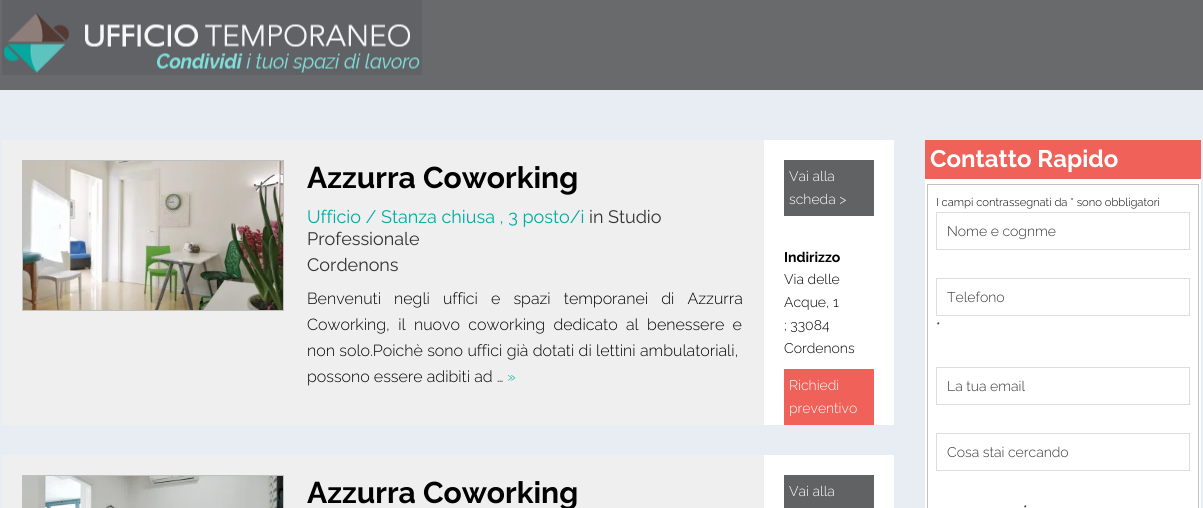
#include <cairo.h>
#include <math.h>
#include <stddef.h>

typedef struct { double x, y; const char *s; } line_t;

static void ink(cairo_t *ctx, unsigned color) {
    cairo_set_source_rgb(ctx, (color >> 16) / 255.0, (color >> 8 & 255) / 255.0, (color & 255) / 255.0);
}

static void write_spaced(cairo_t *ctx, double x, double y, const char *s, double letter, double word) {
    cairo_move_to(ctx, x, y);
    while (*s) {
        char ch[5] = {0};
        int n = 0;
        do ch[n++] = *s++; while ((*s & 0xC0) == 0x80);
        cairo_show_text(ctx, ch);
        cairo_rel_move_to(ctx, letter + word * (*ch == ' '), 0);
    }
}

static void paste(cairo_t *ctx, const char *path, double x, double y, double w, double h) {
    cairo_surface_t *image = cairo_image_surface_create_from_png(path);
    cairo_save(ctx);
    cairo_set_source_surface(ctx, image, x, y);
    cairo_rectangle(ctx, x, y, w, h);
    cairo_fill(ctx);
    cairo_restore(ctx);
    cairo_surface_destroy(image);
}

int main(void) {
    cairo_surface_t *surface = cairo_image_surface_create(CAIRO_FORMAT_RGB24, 1203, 508);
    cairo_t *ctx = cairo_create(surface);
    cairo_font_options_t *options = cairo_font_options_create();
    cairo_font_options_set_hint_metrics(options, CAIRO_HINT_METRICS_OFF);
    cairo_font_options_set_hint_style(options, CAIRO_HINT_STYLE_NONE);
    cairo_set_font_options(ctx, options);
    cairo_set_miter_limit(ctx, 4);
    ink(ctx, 0xE8EDF3);
    cairo_paint(ctx);
    ink(ctx, 0x686A6C);
    cairo_rectangle(ctx, 0, 0, 1203, 90);
    cairo_fill(ctx);
    paste(ctx, "media/1.png", 2, 0, 420, 75);
    ink(ctx, 0xEFEFEF);
    cairo_rectangle(ctx, 2, 140, 762, 285);
    cairo_fill(ctx);
    cairo_rectangle(ctx, 22.5, 160.5, 261, 150);
    ink(ctx, 0xC0C0C0);
    cairo_set_line_width(ctx, 1);
    cairo_stroke(ctx);
    paste(ctx, "media/2.png", 23, 161, 260, 149);
    cairo_select_font_face(ctx, "Raleway", CAIRO_FONT_SLANT_NORMAL, CAIRO_FONT_WEIGHT_BOLD);
    cairo_set_font_size(ctx, 30);
    ink(ctx, 0x000000);
    cairo_move_to(ctx, 307, 188);
    cairo_show_text(ctx, "Azzurra Coworking");
    cairo_select_font_face(ctx, "Raleway", CAIRO_FONT_SLANT_NORMAL, CAIRO_FONT_WEIGHT_NORMAL);
    cairo_set_font_size(ctx, 18);
    ink(ctx, 0x00ABA2);
    cairo_move_to(ctx, 307, 223);
    cairo_show_text(ctx, "Ufficio / Stanza chiusa , 3 posto/i");
    ink(ctx, 0x333333);
    {
        static const line_t items[] = {
            {589, 223, "in Studio"},
            {307, 245, "Professionale"},
            {307, 271, "Cordenons"},
        };
        for (size_t i = 0; i < sizeof items / sizeof *items; i++) {
            cairo_move_to(ctx, items[i].x, items[i].y);
            cairo_show_text(ctx, items[i].s);
        }
    }
    cairo_select_font_face(ctx, "Raleway Light", CAIRO_FONT_SLANT_NORMAL, CAIRO_FONT_WEIGHT_NORMAL);
    cairo_set_font_size(ctx, 16);
    ink(ctx, 0x000000);
    write_spaced(ctx, 307, 304, "Benvenuti negli uffici e spazi temporanei di Azzurra", 0, 9);
    write_spaced(ctx, 307, 330, "Coworking, il nuovo coworking dedicato al benessere e", 0, 4.25);
    write_spaced(ctx, 307, 356, "non solo.Poichè sono uffici già dotati di lettini ambulatoriali,", 0, 0.25);
    cairo_move_to(ctx, 307, 382);
    cairo_show_text(ctx, "possono essere adibiti ad …");
    ink(ctx, 0x00ABA2);
    cairo_move_to(ctx, 507, 382);
    cairo_show_text(ctx, "»");
    ink(ctx, 0xFFFFFF);
    cairo_rectangle(ctx, 764, 140, 130, 285);
    cairo_fill(ctx);
    ink(ctx, 0x606264);
    cairo_rectangle(ctx, 784, 160, 90, 56);
    cairo_fill(ctx);
    cairo_set_font_size(ctx, 14);
    ink(ctx, 0xFFFFFF);
    cairo_move_to(ctx, 789, 181);
    cairo_show_text(ctx, "Vai alla");
    cairo_move_to(ctx, 789, 204);
    cairo_show_text(ctx, "scheda >");
    cairo_select_font_face(ctx, "Raleway", CAIRO_FONT_SLANT_NORMAL, CAIRO_FONT_WEIGHT_BOLD);
    ink(ctx, 0x000000);
    cairo_move_to(ctx, 784, 262);
    cairo_show_text(ctx, "Indirizzo");
    cairo_select_font_face(ctx, "Raleway Light", CAIRO_FONT_SLANT_NORMAL, CAIRO_FONT_WEIGHT_NORMAL);
    {
        static const line_t items[] = {
            {784, 284, "Via delle"},
            {784, 307, "Acque, 1"},
            {784, 330, "; 33084"},
            {784, 353, "Cordenons"},
        };
        for (size_t i = 0; i < sizeof items / sizeof *items; i++) {
            cairo_move_to(ctx, items[i].x, items[i].y);
            cairo_show_text(ctx, items[i].s);
        }
    }
    ink(ctx, 0xEF6159);
    cairo_rectangle(ctx, 784, 369, 90, 56);
    cairo_fill(ctx);
    ink(ctx, 0xFFFFFF);
    cairo_move_to(ctx, 789, 390);
    cairo_show_text(ctx, "Richiedi");
    cairo_move_to(ctx, 789, 413);
    cairo_show_text(ctx, "preventivo");
    ink(ctx, 0xEFEFEF);
    cairo_rectangle(ctx, 2, 455, 762, 53);
    cairo_fill(ctx);
    cairo_rectangle(ctx, 22.5, 475.5, 261, 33);
    ink(ctx, 0xC0C0C0);
    cairo_stroke(ctx);
    paste(ctx, "media/3.png", 23, 476, 260, 32);
    cairo_select_font_face(ctx, "Raleway", CAIRO_FONT_SLANT_NORMAL, CAIRO_FONT_WEIGHT_BOLD);
    cairo_set_font_size(ctx, 30);
    ink(ctx, 0x000000);
    cairo_move_to(ctx, 307, 503);
    cairo_show_text(ctx, "Azzurra Coworking");
    ink(ctx, 0xFFFFFF);
    cairo_rectangle(ctx, 764, 455, 130, 53);
    cairo_fill(ctx);
    ink(ctx, 0x606264);
    cairo_rectangle(ctx, 784, 475, 90, 33);
    cairo_fill(ctx);
    cairo_select_font_face(ctx, "Raleway Light", CAIRO_FONT_SLANT_NORMAL, CAIRO_FONT_WEIGHT_NORMAL);
    cairo_set_font_size(ctx, 14);
    ink(ctx, 0xFFFFFF);
    cairo_move_to(ctx, 789, 496);
    cairo_show_text(ctx, "Vai alla");
    cairo_rectangle(ctx, 925, 179, 276, 329);
    cairo_fill(ctx);
    ink(ctx, 0xEF6159);
    cairo_rectangle(ctx, 925, 140, 276, 39);
    cairo_fill(ctx);
    cairo_select_font_face(ctx, "Raleway", CAIRO_FONT_SLANT_NORMAL, CAIRO_FONT_WEIGHT_BOLD);
    cairo_set_font_size(ctx, 24);
    ink(ctx, 0xFFFFFF);
    cairo_move_to(ctx, 930, 167);
    cairo_show_text(ctx, "Contatto Rapido");
    cairo_rectangle(ctx, 927.5, 184.5, 271, 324);
    ink(ctx, 0xC0C0C0);
    cairo_stroke(ctx);
    cairo_select_font_face(ctx, "Raleway Light", CAIRO_FONT_SLANT_NORMAL, CAIRO_FONT_WEIGHT_NORMAL);
    cairo_set_font_size(ctx, 11.25);
    ink(ctx, 0x000000);
    cairo_move_to(ctx, 936, 206);
    cairo_show_text(ctx, "I campi contrassegnati da * sono obbligatori");
    cairo_rectangle(ctx, 936.5, 212.5, 253, 37);
    ink(ctx, 0xDDDDDD);
    cairo_stroke(ctx);
    cairo_set_font_size(ctx, 14);
    ink(ctx, 0x333333);
    cairo_move_to(ctx, 947, 236);
    cairo_show_text(ctx, "Nome e cognme");
    cairo_rectangle(ctx, 936.5, 278.5, 253, 37);
    ink(ctx, 0xDDDDDD);
    cairo_stroke(ctx);
    ink(ctx, 0x333333);
    cairo_move_to(ctx, 947, 302);
    cairo_show_text(ctx, "Telefono");
    ink(ctx, 0x000000);
    cairo_move_to(ctx, 936, 332);
    cairo_show_text(ctx, "*");
    cairo_rectangle(ctx, 936.5, 367.5, 253, 37);
    ink(ctx, 0xDDDDDD);
    cairo_stroke(ctx);
    ink(ctx, 0x333333);
    cairo_move_to(ctx, 947, 391);
    cairo_show_text(ctx, "La tua email");
    cairo_rectangle(ctx, 936.5, 433.5, 253, 37);
    ink(ctx, 0xDDDDDD);
    cairo_stroke(ctx);
    ink(ctx, 0x333333);
    cairo_move_to(ctx, 947, 457);
    cairo_show_text(ctx, "Cosa stai cercando");
    ink(ctx, 0x000000);
    cairo_move_to(ctx, 1023, 515);
    cairo_show_text(ctx, "*");
    cairo_surface_write_to_png(surface, "image.png");
    cairo_font_options_destroy(options);
    cairo_destroy(ctx);
    cairo_surface_destroy(surface);
    return 0;
}
